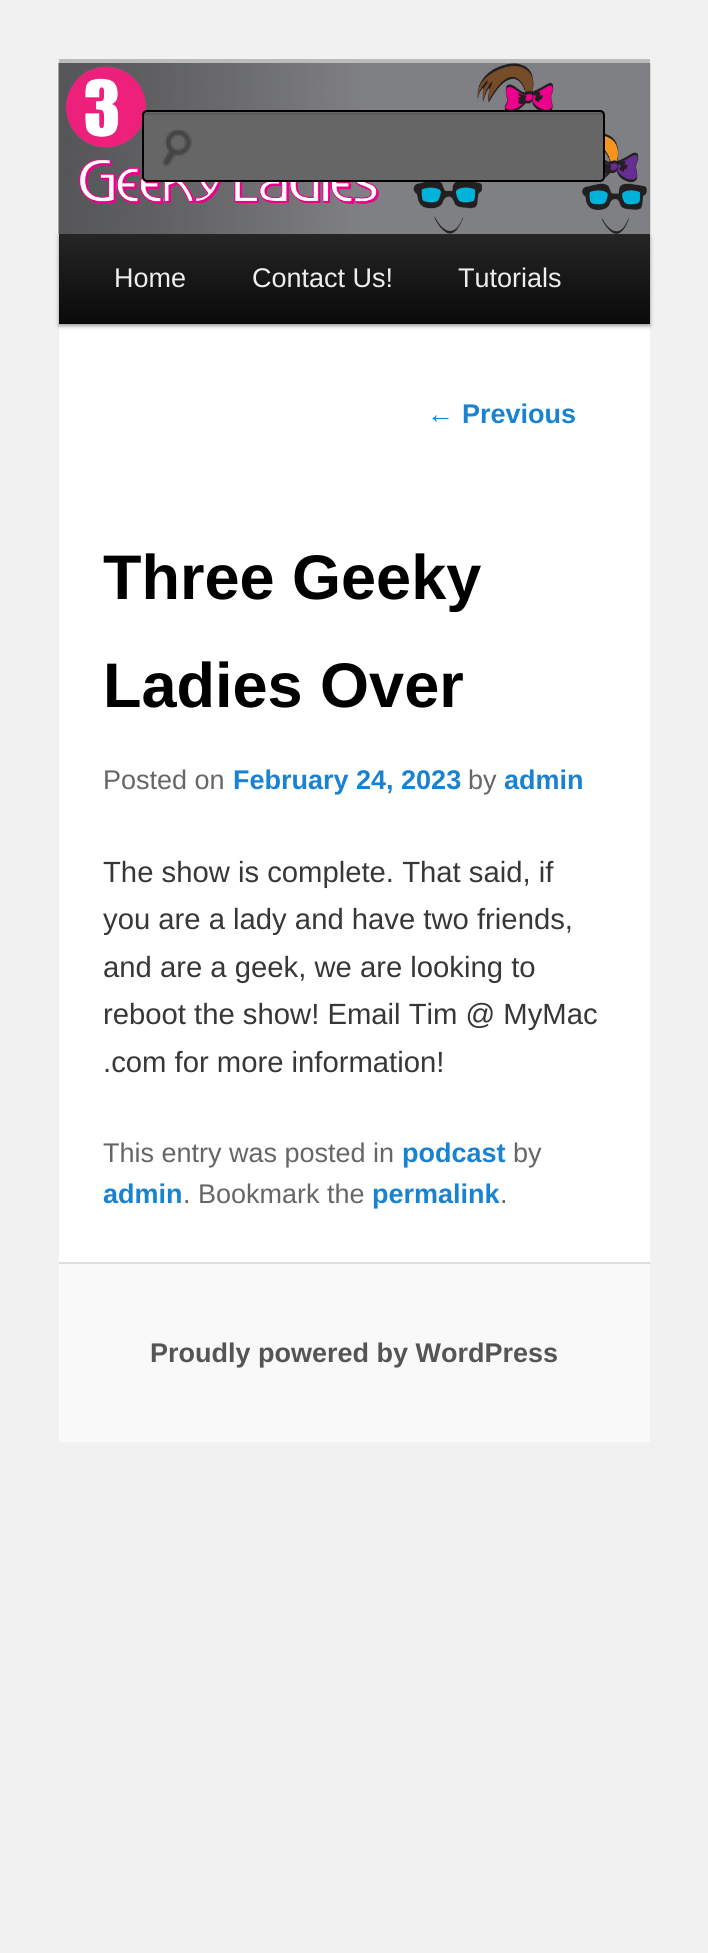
#include <cairo.h>
#include <math.h>
#include <stddef.h>

typedef struct { double x, y; const char *s; } line_t;

static void ink(cairo_t *ctx, unsigned color) {
    cairo_set_source_rgb(ctx, (color >> 16) / 255.0, (color >> 8 & 255) / 255.0, (color & 255) / 255.0);
}

static void round_path(cairo_t *ctx, double x, double y, double w, double h, double r) {
    cairo_new_sub_path(ctx);
    cairo_arc(ctx, x + w - r, y + h - r, r, 0, M_PI / 2);
    cairo_arc(ctx, x + r, y + h - r, r, M_PI / 2, M_PI);
    cairo_arc(ctx, x + r, y + r, r, M_PI, 1.5 * M_PI);
    cairo_arc(ctx, x + w - r, y + r, r, 1.5 * M_PI, 2 * M_PI);
    cairo_close_path(ctx);
}

static void blur_box(cairo_t *ctx, double x, double y, double w, double h, double r, double blur, double alpha) {
    cairo_push_group_with_content(ctx, CAIRO_CONTENT_ALPHA);
    cairo_set_operator(ctx, CAIRO_OPERATOR_SOURCE);
    for (int i = 15; i >= -15 && fmin(w, h) + blur * i / 3 > 0; i -= 2) {
        double e = blur * i / 6;
        cairo_set_source_rgba(ctx, 0, 0, 0, alpha * erfc((i - 1) / 8.5) / 2);
        round_path(ctx, x - e, y - e, w + 2 * e, h + 2 * e, fmax(0, fmin(r + e + blur * .6, fmin(w, h) / 2 + e)));
        cairo_fill(ctx);
    }
    cairo_pattern_t *soft = cairo_pop_group(ctx);
    cairo_mask(ctx, soft);
    cairo_pattern_destroy(soft);
}

static void paste(cairo_t *ctx, const char *path, double x, double y, double w, double h) {
    cairo_surface_t *image = cairo_image_surface_create_from_png(path);
    cairo_save(ctx);
    cairo_set_source_surface(ctx, image, x, y);
    cairo_rectangle(ctx, x, y, w, h);
    cairo_fill(ctx);
    cairo_restore(ctx);
    cairo_surface_destroy(image);
}

int main(void) {
    cairo_surface_t *surface = cairo_image_surface_create(CAIRO_FORMAT_RGB24, 708, 1953);
    cairo_t *ctx = cairo_create(surface);
    cairo_font_options_t *options = cairo_font_options_create();
    cairo_font_options_set_hint_metrics(options, CAIRO_HINT_METRICS_OFF);
    cairo_font_options_set_hint_style(options, CAIRO_HINT_STYLE_NONE);
    cairo_set_font_options(ctx, options);
    cairo_set_miter_limit(ctx, 4);
    cairo_pattern_t *gradient;
    ink(ctx, 0xF1F1F1);
    cairo_paint(ctx);
    ink(ctx, 0xFFFFFF);
    cairo_rectangle(ctx, 59, 324, 591, 938);
    cairo_fill(ctx);
    ink(ctx, 0xBBBBBB);
    cairo_rectangle(ctx, 59, 59, 591, 4);
    cairo_fill(ctx);
    ink(ctx, 0x000000);
    blur_box(ctx, 59, 236, 591, 90, 0, 2, 0.4);
    paste(ctx, "media/1.png", 58, 63, 593, 171);
    ink(ctx, 0x666666);
    round_path(ctx, 142, 110, 463, 72, 5);
    cairo_fill(ctx);
    paste(ctx, "media/2.png", 162, 129, 30, 38);
    ink(ctx, 0x5C5C5C);
    cairo_new_path(ctx);
    cairo_move_to(ctx, 146, 115);
    cairo_line_to(ctx, 601, 115);
    cairo_curve_to(ctx, 602, 115, 603, 116, 603, 117);
    cairo_line_to(ctx, 603, 114);
    cairo_line_to(ctx, 602, 113);
    cairo_line_to(ctx, 146, 113);
    cairo_curve_to(ctx, 144, 113, 144, 115, 144, 117);
    cairo_curve_to(ctx, 144, 116, 145, 115, 146, 115);
    cairo_close_path(ctx);
    cairo_fill(ctx);
    round_path(ctx, 143, 111, 461, 70, 4);
    ink(ctx, 0x000000);
    cairo_stroke(ctx);
    gradient = cairo_pattern_create_linear(354, 234, 354, 324);
    cairo_pattern_add_color_stop_rgba(gradient, 0, 0.145, 0.145, 0.145, 1);
    cairo_pattern_add_color_stop_rgba(gradient, 1, 0.039, 0.039, 0.039, 1);
    cairo_set_source(ctx, gradient);
    cairo_pattern_destroy(gradient);
    cairo_rectangle(ctx, 59, 234, 591, 90);
    cairo_fill(ctx);
    cairo_select_font_face(ctx, "Liberation Sans", CAIRO_FONT_SLANT_NORMAL, CAIRO_FONT_WEIGHT_NORMAL);
    cairo_set_font_size(ctx, 27);
    ink(ctx, 0xEEEEEE);
    {
        static const line_t items[] = {
            {114, 287, "Home"},
            {252, 287, "Contact Us!"},
            {458, 287, "Tutorials"},
        };
        for (size_t i = 0; i < sizeof items / sizeof *items; i++) {
            cairo_move_to(ctx, items[i].x, items[i].y);
            cairo_show_text(ctx, items[i].s);
        }
    }
    ink(ctx, 0x1982D1);
    cairo_move_to(ctx, 427, 423);
    cairo_show_text(ctx, "←");
    cairo_select_font_face(ctx, "Liberation Sans", CAIRO_FONT_SLANT_NORMAL, CAIRO_FONT_WEIGHT_BOLD);
    cairo_move_to(ctx, 462, 423);
    cairo_show_text(ctx, "Previous");
    cairo_set_font_size(ctx, 63);
    ink(ctx, 0x000000);
    cairo_move_to(ctx, 103, 599);
    cairo_show_text(ctx, "Three Geeky");
    cairo_move_to(ctx, 103, 707);
    cairo_show_text(ctx, "Ladies Over");
    cairo_select_font_face(ctx, "Liberation Sans", CAIRO_FONT_SLANT_NORMAL, CAIRO_FONT_WEIGHT_NORMAL);
    cairo_set_font_size(ctx, 27);
    ink(ctx, 0x666666);
    cairo_move_to(ctx, 103, 789);
    cairo_show_text(ctx, "Posted on");
    cairo_select_font_face(ctx, "Liberation Sans", CAIRO_FONT_SLANT_NORMAL, CAIRO_FONT_WEIGHT_BOLD);
    ink(ctx, 0x1982D1);
    cairo_move_to(ctx, 233, 789);
    cairo_show_text(ctx, "February 24, 2023");
    cairo_select_font_face(ctx, "Liberation Sans", CAIRO_FONT_SLANT_NORMAL, CAIRO_FONT_WEIGHT_NORMAL);
    ink(ctx, 0x666666);
    cairo_move_to(ctx, 468, 789);
    cairo_show_text(ctx, "by");
    cairo_select_font_face(ctx, "Liberation Sans", CAIRO_FONT_SLANT_NORMAL, CAIRO_FONT_WEIGHT_BOLD);
    ink(ctx, 0x1982D1);
    cairo_move_to(ctx, 504, 789);
    cairo_show_text(ctx, "admin");
    cairo_select_font_face(ctx, "Liberation Sans", CAIRO_FONT_SLANT_NORMAL, CAIRO_FONT_WEIGHT_NORMAL);
    cairo_set_font_size(ctx, 29.25);
    ink(ctx, 0x373737);
    {
        static const line_t items[] = {
            {103, 882, "The show is complete. That said, if"},
            {103, 929, "you are a lady and have two friends,"},
            {103, 977, "and are a geek, we are looking to"},
            {103, 1024, "reboot the show! Email Tim @ MyMac"},
            {103, 1072, ".com for more information!"},
        };
        for (size_t i = 0; i < sizeof items / sizeof *items; i++) {
            cairo_move_to(ctx, items[i].x, items[i].y);
            cairo_show_text(ctx, items[i].s);
        }
    }
    cairo_set_font_size(ctx, 27);
    ink(ctx, 0x666666);
    cairo_move_to(ctx, 103, 1162);
    cairo_show_text(ctx, "This entry was posted in");
    cairo_select_font_face(ctx, "Liberation Sans", CAIRO_FONT_SLANT_NORMAL, CAIRO_FONT_WEIGHT_BOLD);
    ink(ctx, 0x1982D1);
    cairo_move_to(ctx, 402, 1162);
    cairo_show_text(ctx, "podcast");
    cairo_select_font_face(ctx, "Liberation Sans", CAIRO_FONT_SLANT_NORMAL, CAIRO_FONT_WEIGHT_NORMAL);
    ink(ctx, 0x666666);
    cairo_move_to(ctx, 513, 1162);
    cairo_show_text(ctx, "by");
    cairo_select_font_face(ctx, "Liberation Sans", CAIRO_FONT_SLANT_NORMAL, CAIRO_FONT_WEIGHT_BOLD);
    ink(ctx, 0x1982D1);
    cairo_move_to(ctx, 103, 1203);
    cairo_show_text(ctx, "admin");
    cairo_select_font_face(ctx, "Liberation Sans", CAIRO_FONT_SLANT_NORMAL, CAIRO_FONT_WEIGHT_NORMAL);
    ink(ctx, 0x666666);
    cairo_move_to(ctx, 183, 1203);
    cairo_show_text(ctx, ". Bookmark the");
    cairo_select_font_face(ctx, "Liberation Sans", CAIRO_FONT_SLANT_NORMAL, CAIRO_FONT_WEIGHT_BOLD);
    ink(ctx, 0x1982D1);
    cairo_move_to(ctx, 372, 1203);
    cairo_show_text(ctx, "permalink");
    cairo_select_font_face(ctx, "Liberation Sans", CAIRO_FONT_SLANT_NORMAL, CAIRO_FONT_WEIGHT_NORMAL);
    ink(ctx, 0x666666);
    cairo_move_to(ctx, 500, 1203);
    cairo_show_text(ctx, ".");
    ink(ctx, 0xF9F9F9);
    cairo_rectangle(ctx, 59, 1264, 591, 178);
    cairo_fill(ctx);
    ink(ctx, 0xDDDDDD);
    cairo_rectangle(ctx, 59, 1262, 591, 2);
    cairo_fill(ctx);
    cairo_select_font_face(ctx, "Liberation Sans", CAIRO_FONT_SLANT_NORMAL, CAIRO_FONT_WEIGHT_BOLD);
    ink(ctx, 0x555555);
    cairo_move_to(ctx, 150, 1362);
    cairo_show_text(ctx, "Proudly powered by WordPress");
    cairo_surface_write_to_png(surface, "image.png");
    cairo_font_options_destroy(options);
    cairo_destroy(ctx);
    cairo_surface_destroy(surface);
    return 0;
}
